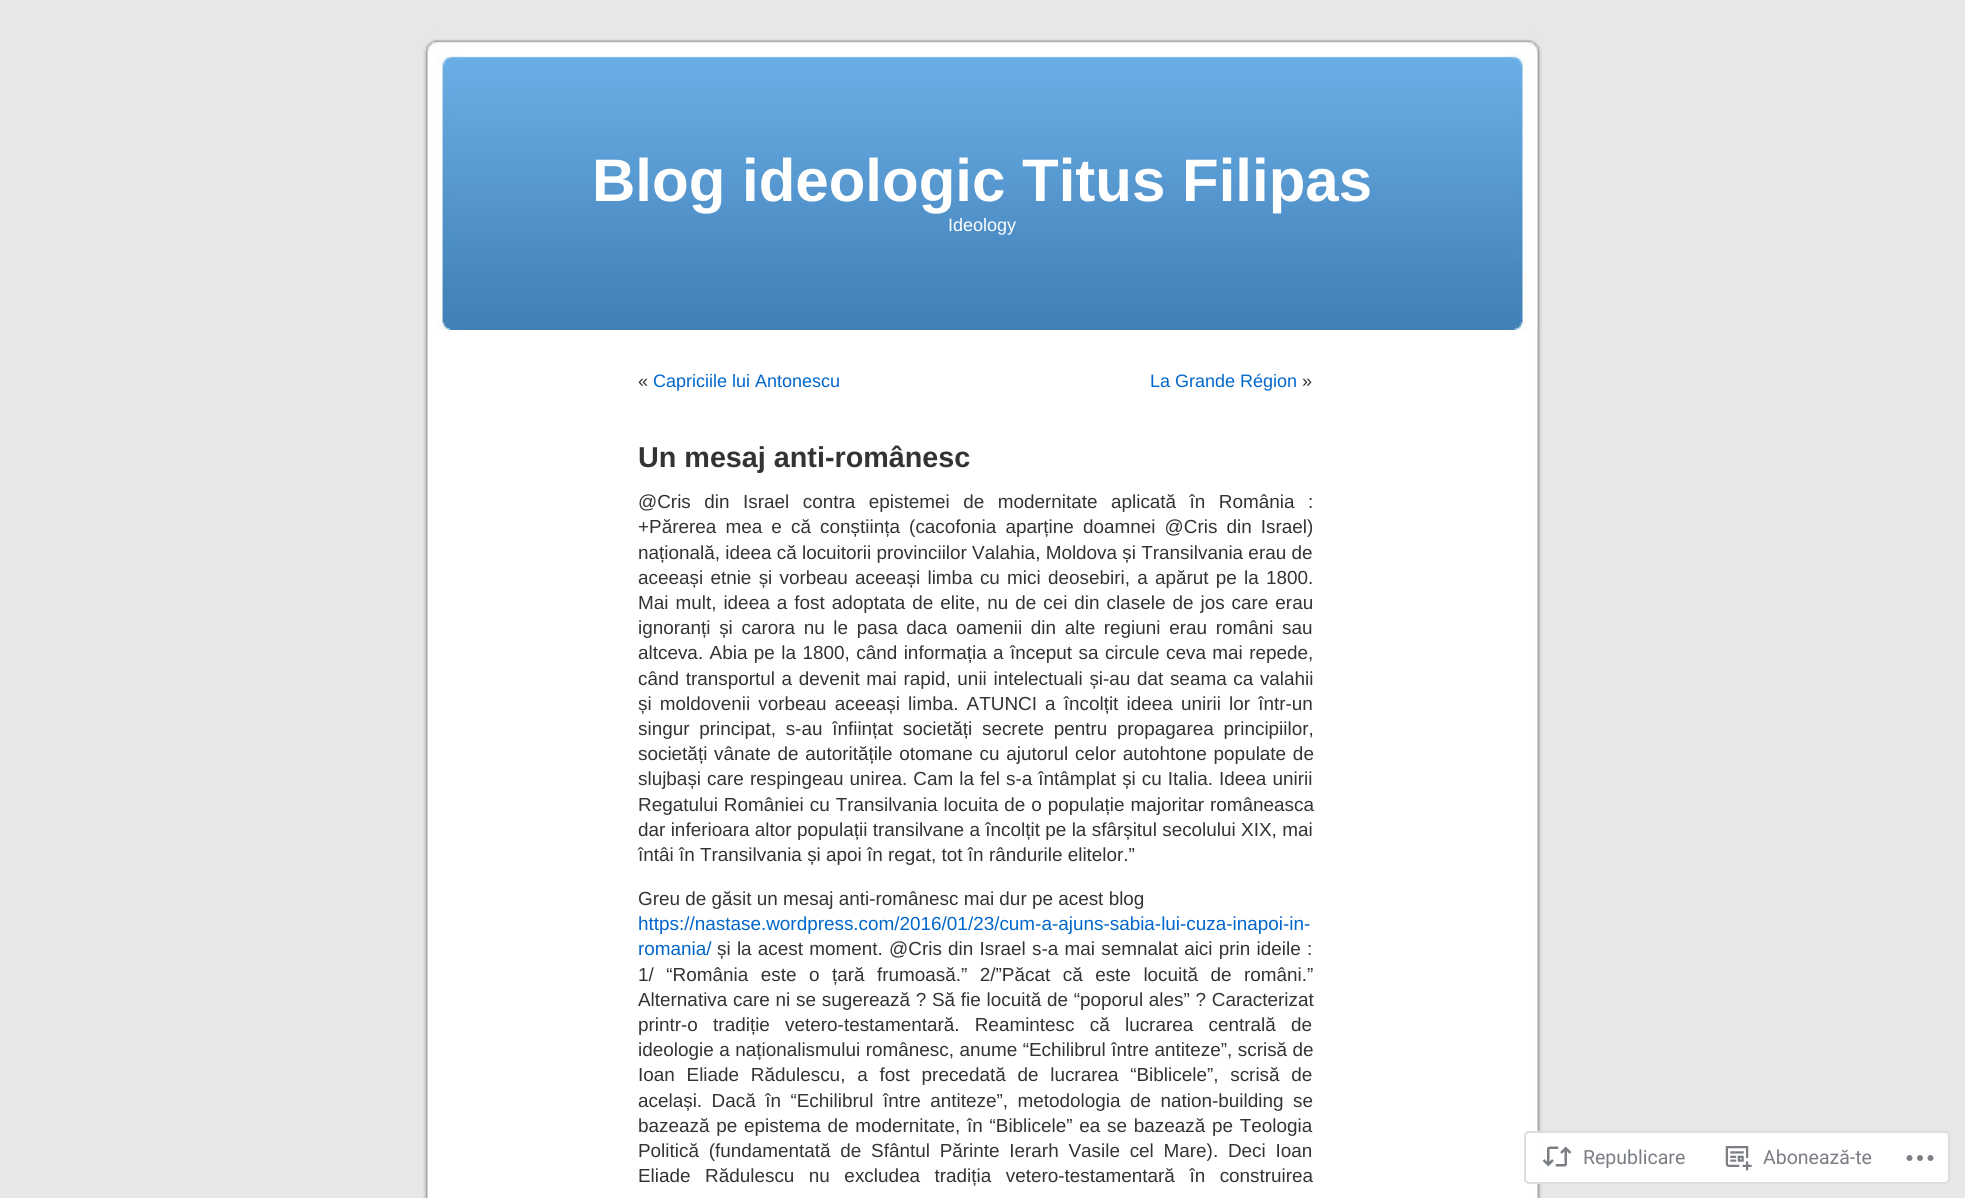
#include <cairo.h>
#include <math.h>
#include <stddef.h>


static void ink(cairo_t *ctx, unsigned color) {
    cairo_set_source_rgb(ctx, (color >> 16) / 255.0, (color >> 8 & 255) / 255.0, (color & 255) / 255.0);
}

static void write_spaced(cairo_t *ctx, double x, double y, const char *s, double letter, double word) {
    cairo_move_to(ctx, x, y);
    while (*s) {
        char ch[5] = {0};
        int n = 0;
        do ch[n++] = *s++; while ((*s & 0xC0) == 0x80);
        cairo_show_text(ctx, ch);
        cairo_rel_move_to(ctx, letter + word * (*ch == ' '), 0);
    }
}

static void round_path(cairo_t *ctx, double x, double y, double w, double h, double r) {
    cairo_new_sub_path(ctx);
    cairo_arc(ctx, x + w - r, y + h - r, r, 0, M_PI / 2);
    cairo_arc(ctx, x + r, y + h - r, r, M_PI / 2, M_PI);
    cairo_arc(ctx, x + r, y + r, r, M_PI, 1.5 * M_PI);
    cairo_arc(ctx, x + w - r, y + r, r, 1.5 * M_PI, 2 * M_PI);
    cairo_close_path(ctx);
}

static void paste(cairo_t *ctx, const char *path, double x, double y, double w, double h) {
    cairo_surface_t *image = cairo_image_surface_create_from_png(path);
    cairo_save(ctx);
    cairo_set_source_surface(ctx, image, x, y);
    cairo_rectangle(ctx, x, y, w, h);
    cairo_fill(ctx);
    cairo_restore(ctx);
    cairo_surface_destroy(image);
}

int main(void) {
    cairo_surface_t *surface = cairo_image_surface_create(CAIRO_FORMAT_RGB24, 1965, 1198);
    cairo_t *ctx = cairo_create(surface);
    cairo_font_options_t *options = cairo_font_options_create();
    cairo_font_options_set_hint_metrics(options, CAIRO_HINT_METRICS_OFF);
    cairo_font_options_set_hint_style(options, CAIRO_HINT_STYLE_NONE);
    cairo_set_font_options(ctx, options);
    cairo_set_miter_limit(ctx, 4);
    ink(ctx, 0xE7E7E7);
    cairo_paint(ctx);
    paste(ctx, "media/1.png", 423, 330, 1119, 868);
    paste(ctx, "media/2.png", 423, 30, 1119, 300);
    cairo_select_font_face(ctx, "Liberation Sans", CAIRO_FONT_SLANT_NORMAL, CAIRO_FONT_WEIGHT_BOLD);
    cairo_set_font_size(ctx, 60);
    ink(ctx, 0xFFFFFF);
    cairo_move_to(ctx, 592, 201);
    cairo_show_text(ctx, "Blog ideologic Titus Filipas");
    cairo_select_font_face(ctx, "Liberation Sans", CAIRO_FONT_SLANT_NORMAL, CAIRO_FONT_WEIGHT_NORMAL);
    cairo_set_font_size(ctx, 18);
    cairo_move_to(ctx, 948, 231);
    cairo_show_text(ctx, "Ideology");
    ink(ctx, 0x333333);
    cairo_move_to(ctx, 638, 387);
    cairo_show_text(ctx, "«");
    ink(ctx, 0x0066CC);
    cairo_move_to(ctx, 653, 387);
    cairo_show_text(ctx, "Capriciile lui Antonescu");
    cairo_move_to(ctx, 1150, 387);
    cairo_show_text(ctx, "La Grande Région");
    ink(ctx, 0x333333);
    cairo_move_to(ctx, 1302, 387);
    cairo_show_text(ctx, "»");
    cairo_select_font_face(ctx, "Liberation Sans", CAIRO_FONT_SLANT_NORMAL, CAIRO_FONT_WEIGHT_BOLD);
    cairo_set_font_size(ctx, 28.75);
    cairo_move_to(ctx, 638, 467);
    cairo_show_text(ctx, "Un mesaj anti-românesc");
    cairo_select_font_face(ctx, "Liberation Sans", CAIRO_FONT_SLANT_NORMAL, CAIRO_FONT_WEIGHT_NORMAL);
    cairo_set_font_size(ctx, 18.9);
    write_spaced(ctx, 638, 508, "@Cris din Israel contra epistemei de modernitate aplicată în România :", 0, 8.25);
    write_spaced(ctx, 638, 533, "+Părerea mea e că conștiința (cacofonia aparține doamnei @Cris din Israel)", 0, 3.9);
    cairo_move_to(ctx, 638, 559);
    cairo_show_text(ctx, "națională, ideea că locuitorii provinciilor Valahia, Moldova și Transilvania erau de");
    write_spaced(ctx, 638, 584, "aceeași etnie și vorbeau aceeași limba cu mici deosebiri, a apărut pe la 1800.", 0, 2);
    write_spaced(ctx, 638, 609, "Mai mult, ideea a fost adoptata de elite, nu de cei din clasele de jos care erau", 0, 1.75);
    write_spaced(ctx, 638, 634, "ignoranți și carora nu le pasa daca oamenii din alte regiuni erau români sau", 0, 3.4);
    write_spaced(ctx, 638, 659, "altceva. Abia pe la 1800, când informația a început sa circule ceva mai repede,", 0, 1.2);
    write_spaced(ctx, 638, 685, "când transportul a devenit mai rapid, unii intelectuali și-au dat seama ca valahii", 0, 1.4);
    write_spaced(ctx, 638, 710, "și moldovenii vorbeau aceeași limba. ATUNCI a încolțit ideea unirii lor într-un", 0, 2.9);
    write_spaced(ctx, 638, 735, "singur principat, s-au înființat societăți secrete pentru propagarea principiilor,", 0, 4.5);
    write_spaced(ctx, 638, 760, "societăți vânate de autoritățile otomane cu ajutorul celor autohtone populate de", 0, 1.5);
    write_spaced(ctx, 638, 785, "slujbași care respingeau unirea. Cam la fel s-a întâmplat și cu Italia. Ideea unirii", 0, 0.8);
    write_spaced(ctx, 638, 811, "Regatului României cu Transilvania locuita de o populație majoritar româneasca", 0, 0.75);
    write_spaced(ctx, 638, 836, "dar inferioara altor populații transilvane a încolțit pe la sfârșitul secolului XIX, mai", 0, 0.1);
    cairo_move_to(ctx, 638, 861);
    cairo_show_text(ctx, "întâi în Transilvania și apoi în regat, tot în rândurile elitelor.”");
    cairo_move_to(ctx, 638, 905);
    cairo_show_text(ctx, "Greu de găsit un mesaj anti-românesc mai dur pe acest blog");
    ink(ctx, 0x0066CC);
    cairo_move_to(ctx, 638, 930);
    cairo_show_text(ctx, "https://nastase.wordpress.com/2016/01/23/cum-a-ajuns-sabia-lui-cuza-inapoi-in-");
    cairo_move_to(ctx, 638, 955);
    cairo_show_text(ctx, "romania/");
    ink(ctx, 0x333333);
    write_spaced(ctx, 717, 955, "și la acest moment. @Cris din Israel s-a mai semnalat aici prin ideile :", 0, 1);
    write_spaced(ctx, 638, 981, "1/ “România este o țară frumoasă.” 2/”Păcat că este locuită de români.”", 0, 7.25);
    write_spaced(ctx, 638, 1006, "Alternativa care ni se sugerează ? Să fie locuită de “poporul ales” ? Caracterizat", 0, 0.5);
    write_spaced(ctx, 638, 1031, "printr-o tradiție vetero-testamentară. Reamintesc că lucrarea centrală de", 0, 10);
    write_spaced(ctx, 638, 1056, "ideologie a naționalismului românesc, anume “Echilibrul între antiteze”, scrisă de", 0, 0.25);
    write_spaced(ctx, 638, 1081, "Ioan Eliade Rădulescu, a fost precedată de lucrarea “Biblicele”, scrisă de", 0, 6.5);
    write_spaced(ctx, 638, 1107, "același. Dacă în “Echilibrul între antiteze”, metodologia de nation-building se", 0, 4.25);
    write_spaced(ctx, 638, 1132, "bazează pe epistema de modernitate, în “Biblicele” ea se bazează pe Teologia", 0, 1.5);
    write_spaced(ctx, 638, 1157, "Politică (fundamentată de Sfântul Părinte Ierarh Vasile cel Mare). Deci Ioan", 0, 4.5);
    write_spaced(ctx, 638, 1182, "Eliade Rădulescu nu excludea tradiția vetero-testamentară în construirea", 0, 9.25);
    cairo_set_source_rgba(ctx, 1, 1, 1, 0.98);
    round_path(ctx, 1524, 1131, 426, 53, 5);
    cairo_fill(ctx);
    round_path(ctx, 1525, 1132, 424, 51, 4);
    cairo_set_source_rgba(ctx, 0.863, 0.863, 0.871, 0.98);
    cairo_stroke(ctx);
    paste(ctx, "media/3.png", 1542, 1146, 30, 21);
    cairo_select_font_face(ctx, "Roboto", CAIRO_FONT_SLANT_NORMAL, CAIRO_FONT_WEIGHT_NORMAL);
    cairo_set_font_size(ctx, 19.5);
    ink(ctx, 0x7A7E84);
    cairo_move_to(ctx, 1583, 1164);
    cairo_show_text(ctx, "Republicare");
    paste(ctx, "media/4.png", 1725, 1146, 27, 25);
    cairo_move_to(ctx, 1763, 1164);
    cairo_show_text(ctx, "Abonează-te");
    paste(ctx, "media/5.png", 1906, 1155, 28, 6);
    cairo_surface_write_to_png(surface, "image.png");
    cairo_font_options_destroy(options);
    cairo_destroy(ctx);
    cairo_surface_destroy(surface);
    return 0;
}
